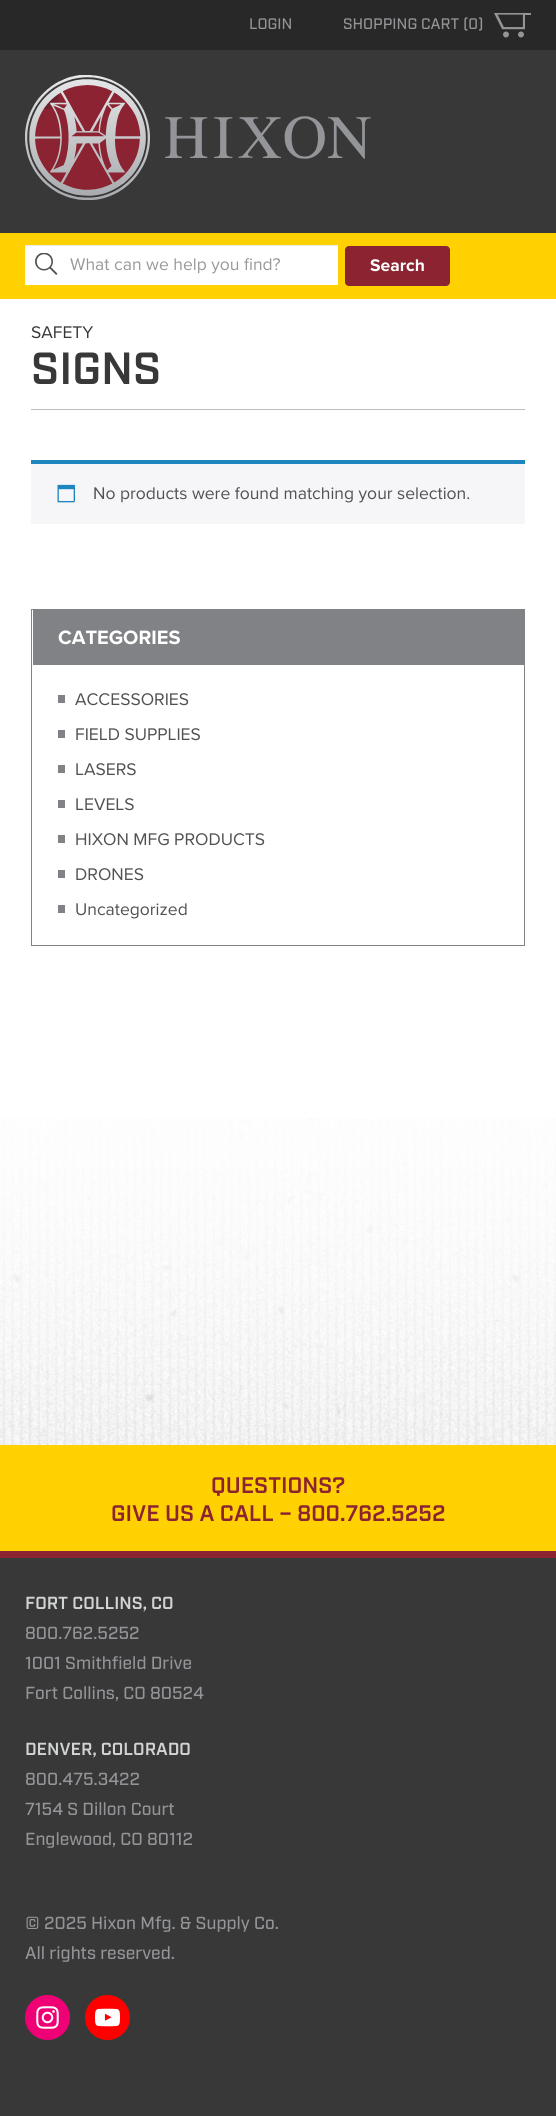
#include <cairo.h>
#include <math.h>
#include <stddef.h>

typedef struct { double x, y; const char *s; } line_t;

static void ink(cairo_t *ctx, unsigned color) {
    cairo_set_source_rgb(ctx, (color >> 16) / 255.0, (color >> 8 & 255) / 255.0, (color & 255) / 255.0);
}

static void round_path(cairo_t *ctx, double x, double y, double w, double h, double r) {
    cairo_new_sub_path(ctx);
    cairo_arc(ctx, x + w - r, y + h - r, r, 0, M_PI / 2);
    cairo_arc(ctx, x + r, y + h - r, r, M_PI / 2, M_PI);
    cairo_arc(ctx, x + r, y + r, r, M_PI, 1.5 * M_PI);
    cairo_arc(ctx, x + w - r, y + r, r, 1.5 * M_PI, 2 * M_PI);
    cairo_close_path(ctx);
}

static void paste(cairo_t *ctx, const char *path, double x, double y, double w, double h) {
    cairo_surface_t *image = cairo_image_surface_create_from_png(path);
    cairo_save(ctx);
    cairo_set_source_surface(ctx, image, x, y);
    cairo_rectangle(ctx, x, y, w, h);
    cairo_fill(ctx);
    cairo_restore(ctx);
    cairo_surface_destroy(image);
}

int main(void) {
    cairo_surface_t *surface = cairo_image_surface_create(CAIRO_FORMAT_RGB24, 556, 2116);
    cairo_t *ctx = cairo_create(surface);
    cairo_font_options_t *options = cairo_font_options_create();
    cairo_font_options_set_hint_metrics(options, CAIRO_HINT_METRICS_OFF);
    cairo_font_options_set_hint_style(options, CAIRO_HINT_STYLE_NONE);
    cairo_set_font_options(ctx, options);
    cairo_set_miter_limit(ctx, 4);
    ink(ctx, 0xFFFFFF);
    cairo_paint(ctx);
    ink(ctx, 0x282828);
    cairo_rectangle(ctx, 0, 0, 556, 50);
    cairo_fill(ctx);
    cairo_select_font_face(ctx, "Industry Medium", CAIRO_FONT_SLANT_NORMAL, CAIRO_FONT_WEIGHT_NORMAL);
    cairo_set_font_size(ctx, 15.25);
    ink(ctx, 0x939598);
    cairo_move_to(ctx, 249, 29);
    cairo_show_text(ctx, "LOGIN");
    cairo_move_to(ctx, 343, 29);
    cairo_show_text(ctx, "SHOPPING CART (0)");
    paste(ctx, "media/1.png", 494, 13, 37, 25);
    ink(ctx, 0x383838);
    cairo_rectangle(ctx, 0, 50, 556, 183);
    cairo_fill(ctx);
    paste(ctx, "media/2.png", 25, 75, 346, 125);
    ink(ctx, 0xFFD100);
    cairo_rectangle(ctx, 0, 233, 556, 66);
    cairo_fill(ctx);
    ink(ctx, 0xFFFFFF);
    cairo_rectangle(ctx, 25, 246, 313, 39);
    cairo_fill(ctx);
    paste(ctx, "media/3.png", 35, 253, 23, 22);
    ink(ctx, 0xECECEC);
    cairo_rectangle(ctx, 25, 245, 313, 1);
    cairo_fill(ctx);
    cairo_select_font_face(ctx, "Proxima Nova", CAIRO_FONT_SLANT_NORMAL, CAIRO_FONT_WEIGHT_NORMAL);
    cairo_set_font_size(ctx, 17.5);
    ink(ctx, 0x999999);
    cairo_move_to(ctx, 70, 270);
    cairo_show_text(ctx, "What can we help you find?");
    ink(ctx, 0x8B2331);
    round_path(ctx, 345, 246, 105, 40, 4);
    cairo_fill(ctx);
    cairo_select_font_face(ctx, "Proxima Nova", CAIRO_FONT_SLANT_NORMAL, CAIRO_FONT_WEIGHT_BOLD);
    ink(ctx, 0xFFFFFF);
    cairo_move_to(ctx, 370, 271);
    cairo_show_text(ctx, "Search");
    paste(ctx, "media/4.png", 0, 1118, 556, 327);
    ink(ctx, 0xBCBEC0);
    cairo_rectangle(ctx, 31, 409, 494, 1);
    cairo_fill(ctx);
    cairo_select_font_face(ctx, "Proxima Nova", CAIRO_FONT_SLANT_NORMAL, CAIRO_FONT_WEIGHT_NORMAL);
    ink(ctx, 0x383838);
    cairo_move_to(ctx, 31, 338);
    cairo_show_text(ctx, "SAFETY");
    cairo_select_font_face(ctx, "Industry SemiBold", CAIRO_FONT_SLANT_NORMAL, CAIRO_FONT_WEIGHT_NORMAL);
    cairo_set_font_size(ctx, 45);
    cairo_move_to(ctx, 31, 384);
    cairo_show_text(ctx, "SIGNS");
    ink(ctx, 0xF6F5F8);
    cairo_rectangle(ctx, 31, 464, 494, 60);
    cairo_fill(ctx);
    ink(ctx, 0x1E85BE);
    cairo_rectangle(ctx, 31, 460, 494, 4);
    cairo_fill(ctx);
    paste(ctx, "media/5.png", 57, 484, 18, 19);
    cairo_select_font_face(ctx, "Proxima Nova", CAIRO_FONT_SLANT_NORMAL, CAIRO_FONT_WEIGHT_NORMAL);
    cairo_set_font_size(ctx, 17.5);
    ink(ctx, 0x515151);
    cairo_move_to(ctx, 93, 499);
    cairo_show_text(ctx, "No products were found matching your selection.");
    cairo_rectangle(ctx, 31.5, 609.5, 493, 336);
    ink(ctx, 0x808285);
    cairo_set_line_width(ctx, 1);
    cairo_stroke(ctx);
    cairo_rectangle(ctx, 33, 610, 491, 55);
    cairo_fill(ctx);
    cairo_select_font_face(ctx, "Proxima Nova", CAIRO_FONT_SLANT_NORMAL, CAIRO_FONT_WEIGHT_BOLD);
    cairo_set_font_size(ctx, 20);
    ink(ctx, 0xFFFFFF);
    cairo_move_to(ctx, 58, 644);
    cairo_show_text(ctx, "CATEGORIES");
    ink(ctx, 0x808285);
    cairo_rectangle(ctx, 58, 695, 7, 8);
    cairo_fill(ctx);
    cairo_select_font_face(ctx, "Proxima Nova", CAIRO_FONT_SLANT_NORMAL, CAIRO_FONT_WEIGHT_NORMAL);
    cairo_set_font_size(ctx, 17.5);
    ink(ctx, 0x515151);
    cairo_move_to(ctx, 75, 705);
    cairo_show_text(ctx, "ACCESSORIES");
    ink(ctx, 0x808285);
    cairo_rectangle(ctx, 58, 730, 7, 8);
    cairo_fill(ctx);
    ink(ctx, 0x515151);
    cairo_move_to(ctx, 75, 740);
    cairo_show_text(ctx, "FIELD SUPPLIES");
    ink(ctx, 0x808285);
    cairo_rectangle(ctx, 58, 765, 7, 8);
    cairo_fill(ctx);
    ink(ctx, 0x515151);
    cairo_move_to(ctx, 75, 775);
    cairo_show_text(ctx, "LASERS");
    ink(ctx, 0x808285);
    cairo_rectangle(ctx, 58, 800, 7, 8);
    cairo_fill(ctx);
    ink(ctx, 0x515151);
    cairo_move_to(ctx, 75, 810);
    cairo_show_text(ctx, "LEVELS");
    ink(ctx, 0x808285);
    cairo_rectangle(ctx, 58, 835, 7, 8);
    cairo_fill(ctx);
    ink(ctx, 0x515151);
    cairo_move_to(ctx, 75, 845);
    cairo_show_text(ctx, "HIXON MFG PRODUCTS");
    ink(ctx, 0x808285);
    cairo_rectangle(ctx, 58, 870, 7, 8);
    cairo_fill(ctx);
    ink(ctx, 0x515151);
    cairo_move_to(ctx, 75, 880);
    cairo_show_text(ctx, "DRONES");
    ink(ctx, 0x808285);
    cairo_rectangle(ctx, 58, 905, 7, 8);
    cairo_fill(ctx);
    ink(ctx, 0x515151);
    cairo_move_to(ctx, 75, 915);
    cairo_show_text(ctx, "Uncategorized");
    ink(ctx, 0xFFD100);
    cairo_rectangle(ctx, 0, 1445, 556, 106);
    cairo_fill(ctx);
    cairo_select_font_face(ctx, "Industry SemiBold", CAIRO_FONT_SLANT_NORMAL, CAIRO_FONT_WEIGHT_NORMAL);
    cairo_set_font_size(ctx, 22.5);
    ink(ctx, 0x8B2331);
    cairo_move_to(ctx, 211, 1493);
    cairo_show_text(ctx, "QUESTIONS?");
    cairo_move_to(ctx, 111, 1521);
    cairo_show_text(ctx, "GIVE US A CALL – 800.762.5252");
    ink(ctx, 0x383838);
    cairo_rectangle(ctx, 0, 1558, 556, 558);
    cairo_fill(ctx);
    ink(ctx, 0x8B2331);
    cairo_rectangle(ctx, 0, 1551, 556, 7);
    cairo_fill(ctx);
    cairo_set_font_size(ctx, 17.5);
    ink(ctx, 0xD1D3D4);
    cairo_move_to(ctx, 25, 1609);
    cairo_show_text(ctx, "FORT COLLINS, CO");
    cairo_select_font_face(ctx, "Industry Medium", CAIRO_FONT_SLANT_NORMAL, CAIRO_FONT_WEIGHT_NORMAL);
    ink(ctx, 0x939598);
    {
        static const line_t items[] = {
            {25, 1639, "800.762.5252"},
            {25, 1669, "1001 Smithfield Drive"},
            {25, 1699, "Fort Collins, CO 80524"},
        };
        for (size_t i = 0; i < sizeof items / sizeof *items; i++) {
            cairo_move_to(ctx, items[i].x, items[i].y);
            cairo_show_text(ctx, items[i].s);
        }
    }
    cairo_select_font_face(ctx, "Industry SemiBold", CAIRO_FONT_SLANT_NORMAL, CAIRO_FONT_WEIGHT_NORMAL);
    ink(ctx, 0xD1D3D4);
    cairo_move_to(ctx, 25, 1755);
    cairo_show_text(ctx, "DENVER, COLORADO");
    cairo_select_font_face(ctx, "Industry Medium", CAIRO_FONT_SLANT_NORMAL, CAIRO_FONT_WEIGHT_NORMAL);
    ink(ctx, 0x939598);
    {
        static const line_t items[] = {
            {25, 1785, "800.475.3422"},
            {25, 1815, "7154 S Dillon Court"},
            {25, 1845, "Englewood, CO 80112"},
            {25, 1929, "© 2025 Hixon Mfg. & Supply Co."},
            {25, 1959, "All rights reserved."},
        };
        for (size_t i = 0; i < sizeof items / sizeof *items; i++) {
            cairo_move_to(ctx, items[i].x, items[i].y);
            cairo_show_text(ctx, items[i].s);
        }
    }
    ink(ctx, 0xF00075);
    cairo_new_path(ctx);
    cairo_arc(ctx, 47.5, 2017.5, 22.5, 0, 2 * M_PI);
    cairo_fill(ctx);
    paste(ctx, "media/6.png", 36, 2006, 23, 23);
    ink(ctx, 0xFF0000);
    cairo_arc(ctx, 107.5, 2017.5, 22.5, 0, 2 * M_PI);
    cairo_fill(ctx);
    paste(ctx, "media/7.png", 95, 2008, 25, 19);
    cairo_surface_write_to_png(surface, "image.png");
    cairo_font_options_destroy(options);
    cairo_destroy(ctx);
    cairo_surface_destroy(surface);
    return 0;
}
